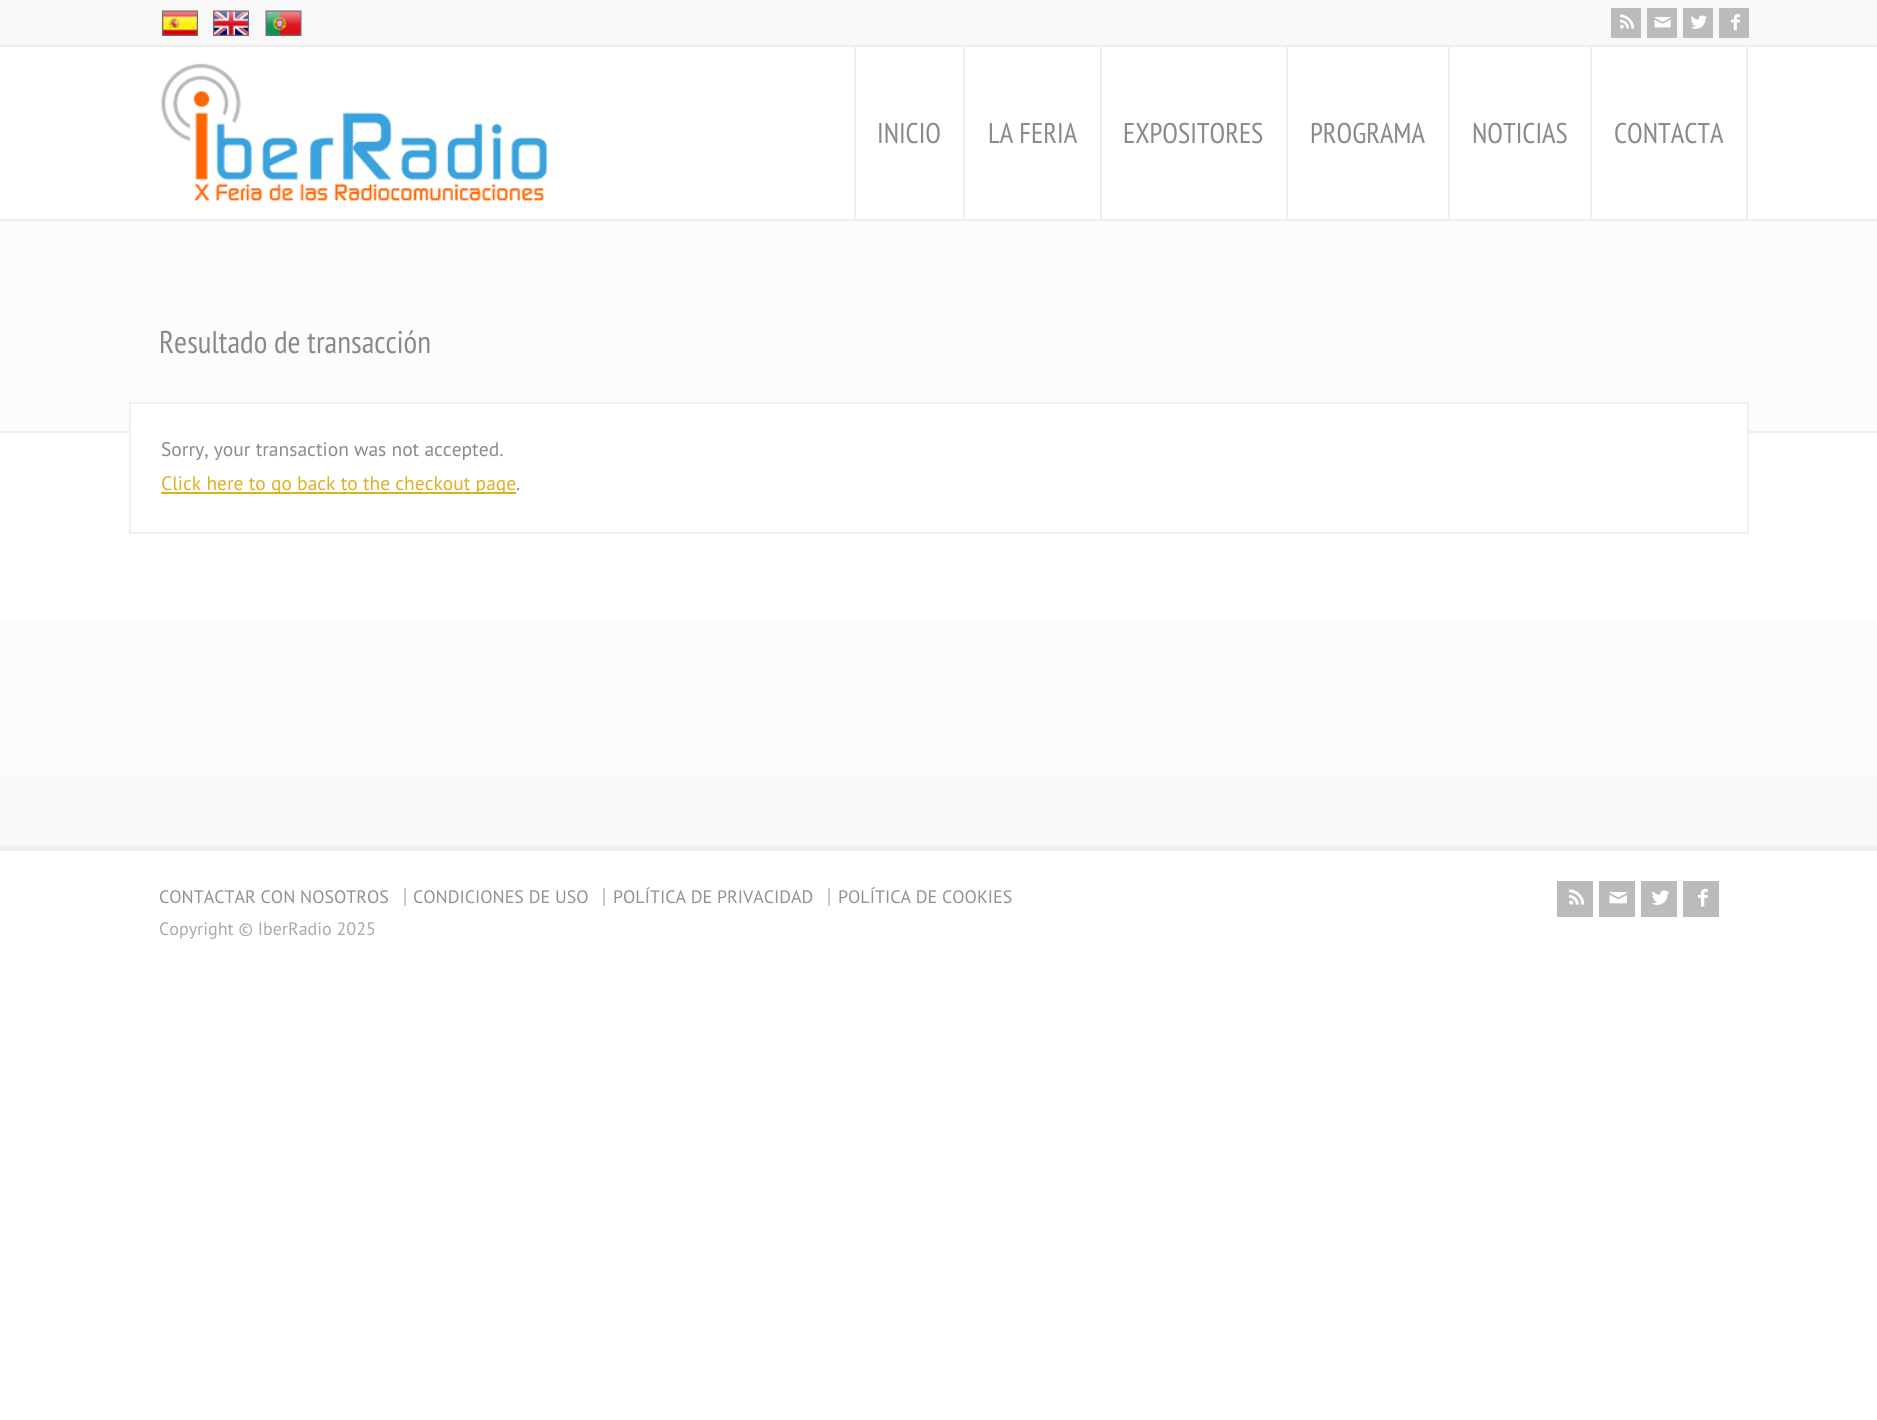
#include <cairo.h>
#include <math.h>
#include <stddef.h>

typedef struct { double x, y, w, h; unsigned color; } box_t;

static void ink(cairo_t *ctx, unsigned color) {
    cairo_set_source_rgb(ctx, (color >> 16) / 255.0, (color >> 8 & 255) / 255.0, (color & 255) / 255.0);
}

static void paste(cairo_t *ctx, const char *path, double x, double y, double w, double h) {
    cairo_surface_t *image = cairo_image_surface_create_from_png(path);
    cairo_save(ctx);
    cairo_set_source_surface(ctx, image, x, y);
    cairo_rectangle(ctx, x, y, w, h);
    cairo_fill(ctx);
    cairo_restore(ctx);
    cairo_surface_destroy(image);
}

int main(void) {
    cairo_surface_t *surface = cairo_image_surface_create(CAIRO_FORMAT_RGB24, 1877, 1420);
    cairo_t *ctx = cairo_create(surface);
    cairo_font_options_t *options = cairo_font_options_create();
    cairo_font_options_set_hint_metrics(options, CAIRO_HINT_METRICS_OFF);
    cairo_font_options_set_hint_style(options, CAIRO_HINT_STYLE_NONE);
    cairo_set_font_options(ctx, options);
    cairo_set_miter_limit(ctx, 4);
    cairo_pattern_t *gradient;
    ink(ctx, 0xFFFFFF);
    cairo_paint(ctx);
    ink(ctx, 0xF8F8F8);
    cairo_rectangle(ctx, 0, 0, 1877, 45);
    cairo_fill(ctx);
    ink(ctx, 0xEEEEEE);
    cairo_rectangle(ctx, 0, 45, 1877, 2);
    cairo_fill(ctx);
    paste(ctx, "media/1.png", 162, 10, 36, 26);
    paste(ctx, "media/2.png", 213, 10, 36, 26);
    paste(ctx, "media/3.png", 265, 10, 37, 26);
    ink(ctx, 0xBBBBBB);
    cairo_rectangle(ctx, 1611, 8, 30, 30);
    cairo_fill(ctx);
    paste(ctx, "media/4.png", 1620, 14, 15, 15);
    cairo_rectangle(ctx, 1647, 8, 30, 30);
    cairo_fill(ctx);
    paste(ctx, "media/5.png", 1654, 17, 17, 11);
    cairo_rectangle(ctx, 1683, 8, 30, 30);
    cairo_fill(ctx);
    paste(ctx, "media/6.png", 1691, 15, 16, 14);
    cairo_rectangle(ctx, 1719, 8, 30, 30);
    cairo_fill(ctx);
    paste(ctx, "media/7.png", 1731, 14, 9, 17);
    paste(ctx, "media/8.png", 161, 63, 386, 138);
    ink(ctx, 0xEEEEEE);
    cairo_rectangle(ctx, 963, 47, 2, 172);
    cairo_fill(ctx);
    cairo_rectangle(ctx, 854, 47, 2, 172);
    cairo_fill(ctx);
    cairo_select_font_face(ctx, "PT Sans Narrow", CAIRO_FONT_SLANT_NORMAL, CAIRO_FONT_WEIGHT_NORMAL);
    cairo_set_font_size(ctx, 28.5);
    ink(ctx, 0x8A8A8A);
    cairo_move_to(ctx, 877, 143);
    cairo_show_text(ctx, "INICIO");
    ink(ctx, 0xEEEEEE);
    cairo_rectangle(ctx, 1100, 47, 2, 172);
    cairo_fill(ctx);
    ink(ctx, 0x8A8A8A);
    cairo_move_to(ctx, 988, 143);
    cairo_show_text(ctx, "LA FERIA");
    ink(ctx, 0xEEEEEE);
    cairo_rectangle(ctx, 1286, 47, 2, 172);
    cairo_fill(ctx);
    ink(ctx, 0x8A8A8A);
    cairo_move_to(ctx, 1123, 143);
    cairo_show_text(ctx, "EXPOSITORES");
    ink(ctx, 0xEEEEEE);
    cairo_rectangle(ctx, 1448, 47, 2, 172);
    cairo_fill(ctx);
    ink(ctx, 0x8A8A8A);
    cairo_move_to(ctx, 1310, 143);
    cairo_show_text(ctx, "PROGRAMA");
    ink(ctx, 0xEEEEEE);
    cairo_rectangle(ctx, 1590, 47, 2, 172);
    cairo_fill(ctx);
    ink(ctx, 0x8A8A8A);
    cairo_move_to(ctx, 1472, 143);
    cairo_show_text(ctx, "NOTICIAS");
    ink(ctx, 0xEEEEEE);
    cairo_rectangle(ctx, 1746, 47, 2, 172);
    cairo_fill(ctx);
    ink(ctx, 0x8A8A8A);
    cairo_move_to(ctx, 1614, 143);
    cairo_show_text(ctx, "CONTACTA");
    gradient = cairo_pattern_create_linear(939, 0, 939, 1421);
    cairo_pattern_add_color_stop_rgba(gradient, 0, 0.949, 0.949, 0.949, 1);
    cairo_pattern_add_color_stop_rgba(gradient, 0.3, 1, 1, 1, 1);
    cairo_pattern_add_color_stop_rgba(gradient, 1, 0.949, 0.949, 0.949, 1);
    cairo_set_source(ctx, gradient);
    cairo_pattern_destroy(gradient);
    cairo_rectangle(ctx, 0, 618, 1877, 227);
    cairo_fill(ctx);
    {
        static const box_t items[] = {
            {0, 221, 1877, 210, 0xFCFCFC},
            {0, 219, 1877, 2, 0xEEEEEE},
            {0, 431, 1877, 2, 0xEEEEEE},
        };
        for (size_t i = 0; i < sizeof items / sizeof *items; i++) {
            ink(ctx, items[i].color);
            cairo_rectangle(ctx, items[i].x, items[i].y, items[i].w, items[i].h);
            cairo_fill(ctx);
        }
    }
    cairo_set_font_size(ctx, 31.5);
    ink(ctx, 0x8A8A8A);
    cairo_move_to(ctx, 159, 353);
    cairo_show_text(ctx, "Resultado de transacción");
    ink(ctx, 0xFFFFFF);
    cairo_rectangle(ctx, 131, 404, 1616, 29);
    cairo_fill(ctx);
    cairo_rectangle(ctx, 130, 403, 1618, 130);
    ink(ctx, 0xF0F0F0);
    cairo_stroke(ctx);
    cairo_select_font_face(ctx, "PT Sans", CAIRO_FONT_SLANT_NORMAL, CAIRO_FONT_WEIGHT_NORMAL);
    cairo_set_font_size(ctx, 19.5);
    ink(ctx, 0x8A8A8A);
    cairo_move_to(ctx, 161, 456);
    cairo_show_text(ctx, "Sorry, your transaction was not accepted.");
    ink(ctx, 0xE0AF1D);
    cairo_rectangle(ctx, 161, 492, 355, 2);
    cairo_fill(ctx);
    cairo_move_to(ctx, 161, 490);
    cairo_show_text(ctx, "Click here to go back to the checkout page");
    ink(ctx, 0x8A8A8A);
    cairo_move_to(ctx, 516, 490);
    cairo_show_text(ctx, ".");
    ink(ctx, 0xF0F0F0);
    cairo_rectangle(ctx, 0, 845, 1877, 6);
    cairo_fill(ctx);
    cairo_set_font_size(ctx, 18);
    ink(ctx, 0x919191);
    cairo_move_to(ctx, 159, 903);
    cairo_show_text(ctx, "CONTACTAR CON NOSOTROS");
    ink(ctx, 0xCDCDCD);
    cairo_rectangle(ctx, 404, 888, 2, 18);
    cairo_fill(ctx);
    ink(ctx, 0x919191);
    cairo_move_to(ctx, 413, 903);
    cairo_show_text(ctx, "CONDICIONES DE USO");
    ink(ctx, 0xCDCDCD);
    cairo_rectangle(ctx, 603, 888, 2, 18);
    cairo_fill(ctx);
    ink(ctx, 0x919191);
    cairo_move_to(ctx, 613, 903);
    cairo_show_text(ctx, "POLÍTICA DE PRIVACIDAD");
    ink(ctx, 0xCDCDCD);
    cairo_rectangle(ctx, 828, 888, 2, 18);
    cairo_fill(ctx);
    ink(ctx, 0x919191);
    cairo_move_to(ctx, 838, 903);
    cairo_show_text(ctx, "POLÍTICA DE COOKIES");
    ink(ctx, 0xA9A9A9);
    cairo_move_to(ctx, 159, 935);
    cairo_show_text(ctx, "Copyright © IberRadio 2025");
    ink(ctx, 0xBBBBBB);
    cairo_rectangle(ctx, 1557, 881, 36, 36);
    cairo_fill(ctx);
    paste(ctx, "media/9.png", 1569, 889, 16, 16);
    cairo_rectangle(ctx, 1599, 881, 36, 36);
    cairo_fill(ctx);
    paste(ctx, "media/10.png", 1609, 892, 18, 12);
    cairo_rectangle(ctx, 1641, 881, 36, 36);
    cairo_fill(ctx);
    paste(ctx, "media/11.png", 1651, 890, 19, 15);
    cairo_rectangle(ctx, 1683, 881, 36, 36);
    cairo_fill(ctx);
    paste(ctx, "media/12.png", 1698, 888, 10, 19);
    cairo_surface_write_to_png(surface, "image.png");
    cairo_font_options_destroy(options);
    cairo_destroy(ctx);
    cairo_surface_destroy(surface);
    return 0;
}
